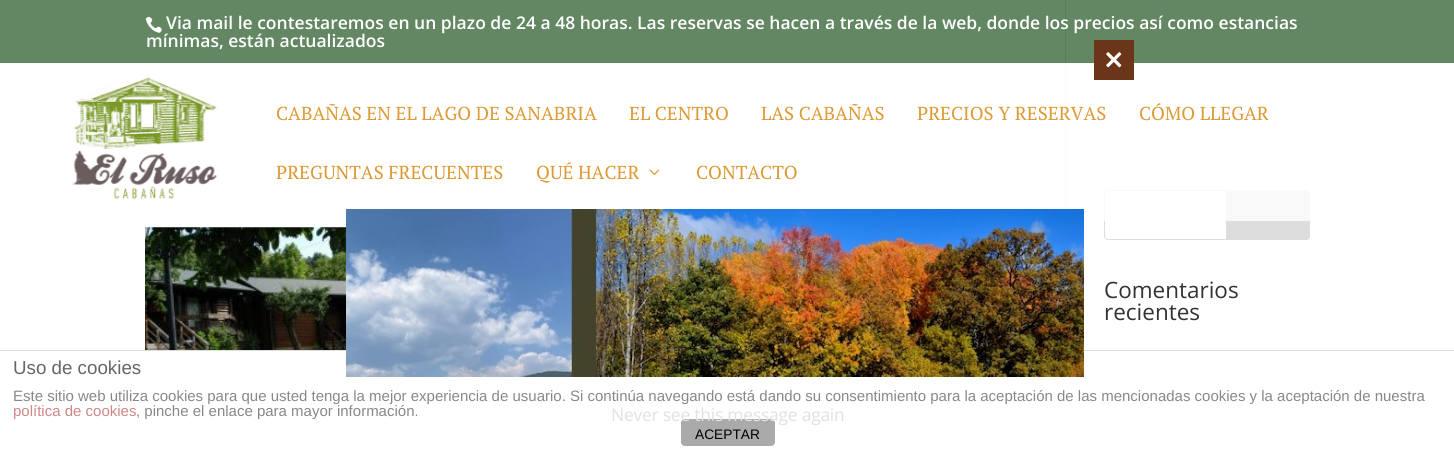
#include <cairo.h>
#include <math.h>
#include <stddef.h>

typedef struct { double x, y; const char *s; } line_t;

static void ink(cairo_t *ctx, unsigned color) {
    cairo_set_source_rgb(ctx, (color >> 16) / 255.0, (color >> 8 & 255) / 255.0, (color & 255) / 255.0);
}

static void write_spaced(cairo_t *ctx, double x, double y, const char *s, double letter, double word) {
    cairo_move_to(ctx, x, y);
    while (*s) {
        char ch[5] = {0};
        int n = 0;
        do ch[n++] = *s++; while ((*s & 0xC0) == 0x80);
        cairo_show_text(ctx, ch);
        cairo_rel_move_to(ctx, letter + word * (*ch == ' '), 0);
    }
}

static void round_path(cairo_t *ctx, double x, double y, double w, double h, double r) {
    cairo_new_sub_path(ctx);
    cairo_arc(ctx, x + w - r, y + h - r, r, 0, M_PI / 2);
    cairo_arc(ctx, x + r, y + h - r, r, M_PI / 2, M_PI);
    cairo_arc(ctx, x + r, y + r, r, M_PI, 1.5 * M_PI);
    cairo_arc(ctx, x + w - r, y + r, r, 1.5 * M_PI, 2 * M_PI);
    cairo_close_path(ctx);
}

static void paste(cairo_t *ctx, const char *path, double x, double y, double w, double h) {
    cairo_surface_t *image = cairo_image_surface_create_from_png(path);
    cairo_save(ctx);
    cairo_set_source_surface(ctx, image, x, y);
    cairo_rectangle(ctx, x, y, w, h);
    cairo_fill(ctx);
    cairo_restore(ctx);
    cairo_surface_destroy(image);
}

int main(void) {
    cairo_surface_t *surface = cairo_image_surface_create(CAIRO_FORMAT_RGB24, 1454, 453);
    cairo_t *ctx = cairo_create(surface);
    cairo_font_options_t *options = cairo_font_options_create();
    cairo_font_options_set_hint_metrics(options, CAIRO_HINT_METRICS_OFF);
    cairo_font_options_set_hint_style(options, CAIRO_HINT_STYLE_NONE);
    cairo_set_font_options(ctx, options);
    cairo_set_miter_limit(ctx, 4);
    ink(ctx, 0xFFFFFF);
    cairo_paint(ctx);
    ink(ctx, 0x638763);
    cairo_rectangle(ctx, 0, 0, 1454, 63);
    cairo_fill(ctx);
    paste(ctx, "media/1.png", 145, 16, 17, 17);
    ink(ctx, 0x587D59);
    cairo_rectangle(ctx, 1065, 0, 1, 63);
    cairo_fill(ctx);
    cairo_select_font_face(ctx, "Open Sans SemiBold", CAIRO_FONT_SLANT_NORMAL, CAIRO_FONT_WEIGHT_NORMAL);
    cairo_set_font_size(ctx, 17.5);
    ink(ctx, 0xFFFFFF);
    cairo_move_to(ctx, 166, 29);
    cairo_show_text(ctx, "Via mail le contestaremos en un plazo de 24 a 48 horas. Las reservas se hacen a través de la web, donde los precios así como estancias");
    cairo_move_to(ctx, 146, 47);
    cairo_show_text(ctx, "mínimas, están actualizados");
    ink(ctx, 0xE2E2E2);
    cairo_rectangle(ctx, 1065, 63, 1, 146);
    cairo_fill(ctx);
    round_path(ctx, 1104.5, 190.5, 205, 49, 3.5);
    ink(ctx, 0xDDDDDD);
    cairo_set_line_width(ctx, 1);
    cairo_stroke(ctx);
    cairo_new_path(ctx);
    cairo_move_to(ctx, 1226.5, 190.5);
    cairo_line_to(ctx, 1306, 190.5);
    cairo_curve_to(ctx, 1308, 190.5, 1309.5, 192, 1309.5, 194);
    cairo_line_to(ctx, 1309.5, 236);
    cairo_curve_to(ctx, 1309.5, 238, 1308, 239.5, 1306, 239.5);
    cairo_line_to(ctx, 1226.5, 239.5);
    cairo_close_path(ctx);
    cairo_fill_preserve(ctx);
    cairo_stroke(ctx);
    cairo_set_source_rgba(ctx, 1, 1, 1, 0.83);
    cairo_rectangle(ctx, 1065, 63, 245, 158);
    cairo_fill(ctx);
    paste(ctx, "media/2.png", 71, 77, 147, 122);
    cairo_select_font_face(ctx, "PT Serif", CAIRO_FONT_SLANT_NORMAL, CAIRO_FONT_WEIGHT_NORMAL);
    cairo_set_font_size(ctx, 18.75);
    ink(ctx, 0xDD9933);
    {
        static const line_t items[] = {
            {276, 120, "CABAÑAS EN EL LAGO DE SANABRIA"},
            {629, 120, "EL CENTRO"},
            {761, 120, "LAS CABAÑAS"},
            {917, 120, "PRECIOS Y RESERVAS"},
            {1139, 120, "CÓMO LLEGAR"},
            {276, 179, "PREGUNTAS FRECUENTES"},
            {536, 179, "QUÉ HACER"},
        };
        for (size_t i = 0; i < sizeof items / sizeof *items; i++) {
            cairo_move_to(ctx, items[i].x, items[i].y);
            cairo_show_text(ctx, items[i].s);
        }
    }
    paste(ctx, "media/3.png", 649, 169, 10, 6);
    cairo_move_to(ctx, 696, 179);
    cairo_show_text(ctx, "CONTACTO");
    paste(ctx, "media/4.png", 145, 227, 201, 123);
    cairo_select_font_face(ctx, "Open Sans", CAIRO_FONT_SLANT_NORMAL, CAIRO_FONT_WEIGHT_NORMAL);
    cairo_set_font_size(ctx, 22.5);
    ink(ctx, 0x333333);
    cairo_move_to(ctx, 1104, 298);
    cairo_show_text(ctx, "Comentarios");
    cairo_move_to(ctx, 1104, 320);
    cairo_show_text(ctx, "recientes");
    ink(ctx, 0xDDDDDD);
    cairo_rectangle(ctx, 0, 350, 1454, 1);
    cairo_fill(ctx);
    cairo_select_font_face(ctx, "Liberation Sans", CAIRO_FONT_SLANT_NORMAL, CAIRO_FONT_WEIGHT_NORMAL);
    cairo_set_font_size(ctx, 18.75);
    ink(ctx, 0x666666);
    cairo_move_to(ctx, 13, 374);
    cairo_show_text(ctx, "Uso de cookies");
    cairo_set_font_size(ctx, 15);
    ink(ctx, 0x888888);
    cairo_move_to(ctx, 13, 401);
    cairo_show_text(ctx, "Este sitio web utiliza cookies para que usted tenga la mejor experiencia de usuario. Si continúa navegando está dando su consentimiento para la aceptación de las mencionadas cookies y la aceptación de nuestra");
    ink(ctx, 0xCC8888);
    cairo_move_to(ctx, 13, 416);
    cairo_show_text(ctx, "política de cookies");
    ink(ctx, 0x888888);
    cairo_move_to(ctx, 136, 416);
    cairo_show_text(ctx, ", pinche el enlace para mayor información.");
    ink(ctx, 0xAAAAAA);
    round_path(ctx, 681, 419, 94, 27, 4);
    cairo_fill(ctx);
    cairo_set_font_size(ctx, 13.75);
    ink(ctx, 0x000000);
    cairo_move_to(ctx, 695, 439);
    cairo_show_text(ctx, "ACEPTAR");
    ink(ctx, 0x6B351A);
    cairo_rectangle(ctx, 1094, 40, 40, 40);
    cairo_fill(ctx);
    paste(ctx, "media/5.png", 1106, 52, 16, 16);
    paste(ctx, "media/6.png", 346, 209, 738, 168);
    cairo_select_font_face(ctx, "Open Sans", CAIRO_FONT_SLANT_NORMAL, CAIRO_FONT_WEIGHT_NORMAL);
    cairo_set_font_size(ctx, 17.5);
    ink(ctx, 0xE1E1E1);
    write_spaced(ctx, 611, 421, "Never see this message again", -0.25, 0);
    cairo_surface_write_to_png(surface, "image.png");
    cairo_font_options_destroy(options);
    cairo_destroy(ctx);
    cairo_surface_destroy(surface);
    return 0;
}
